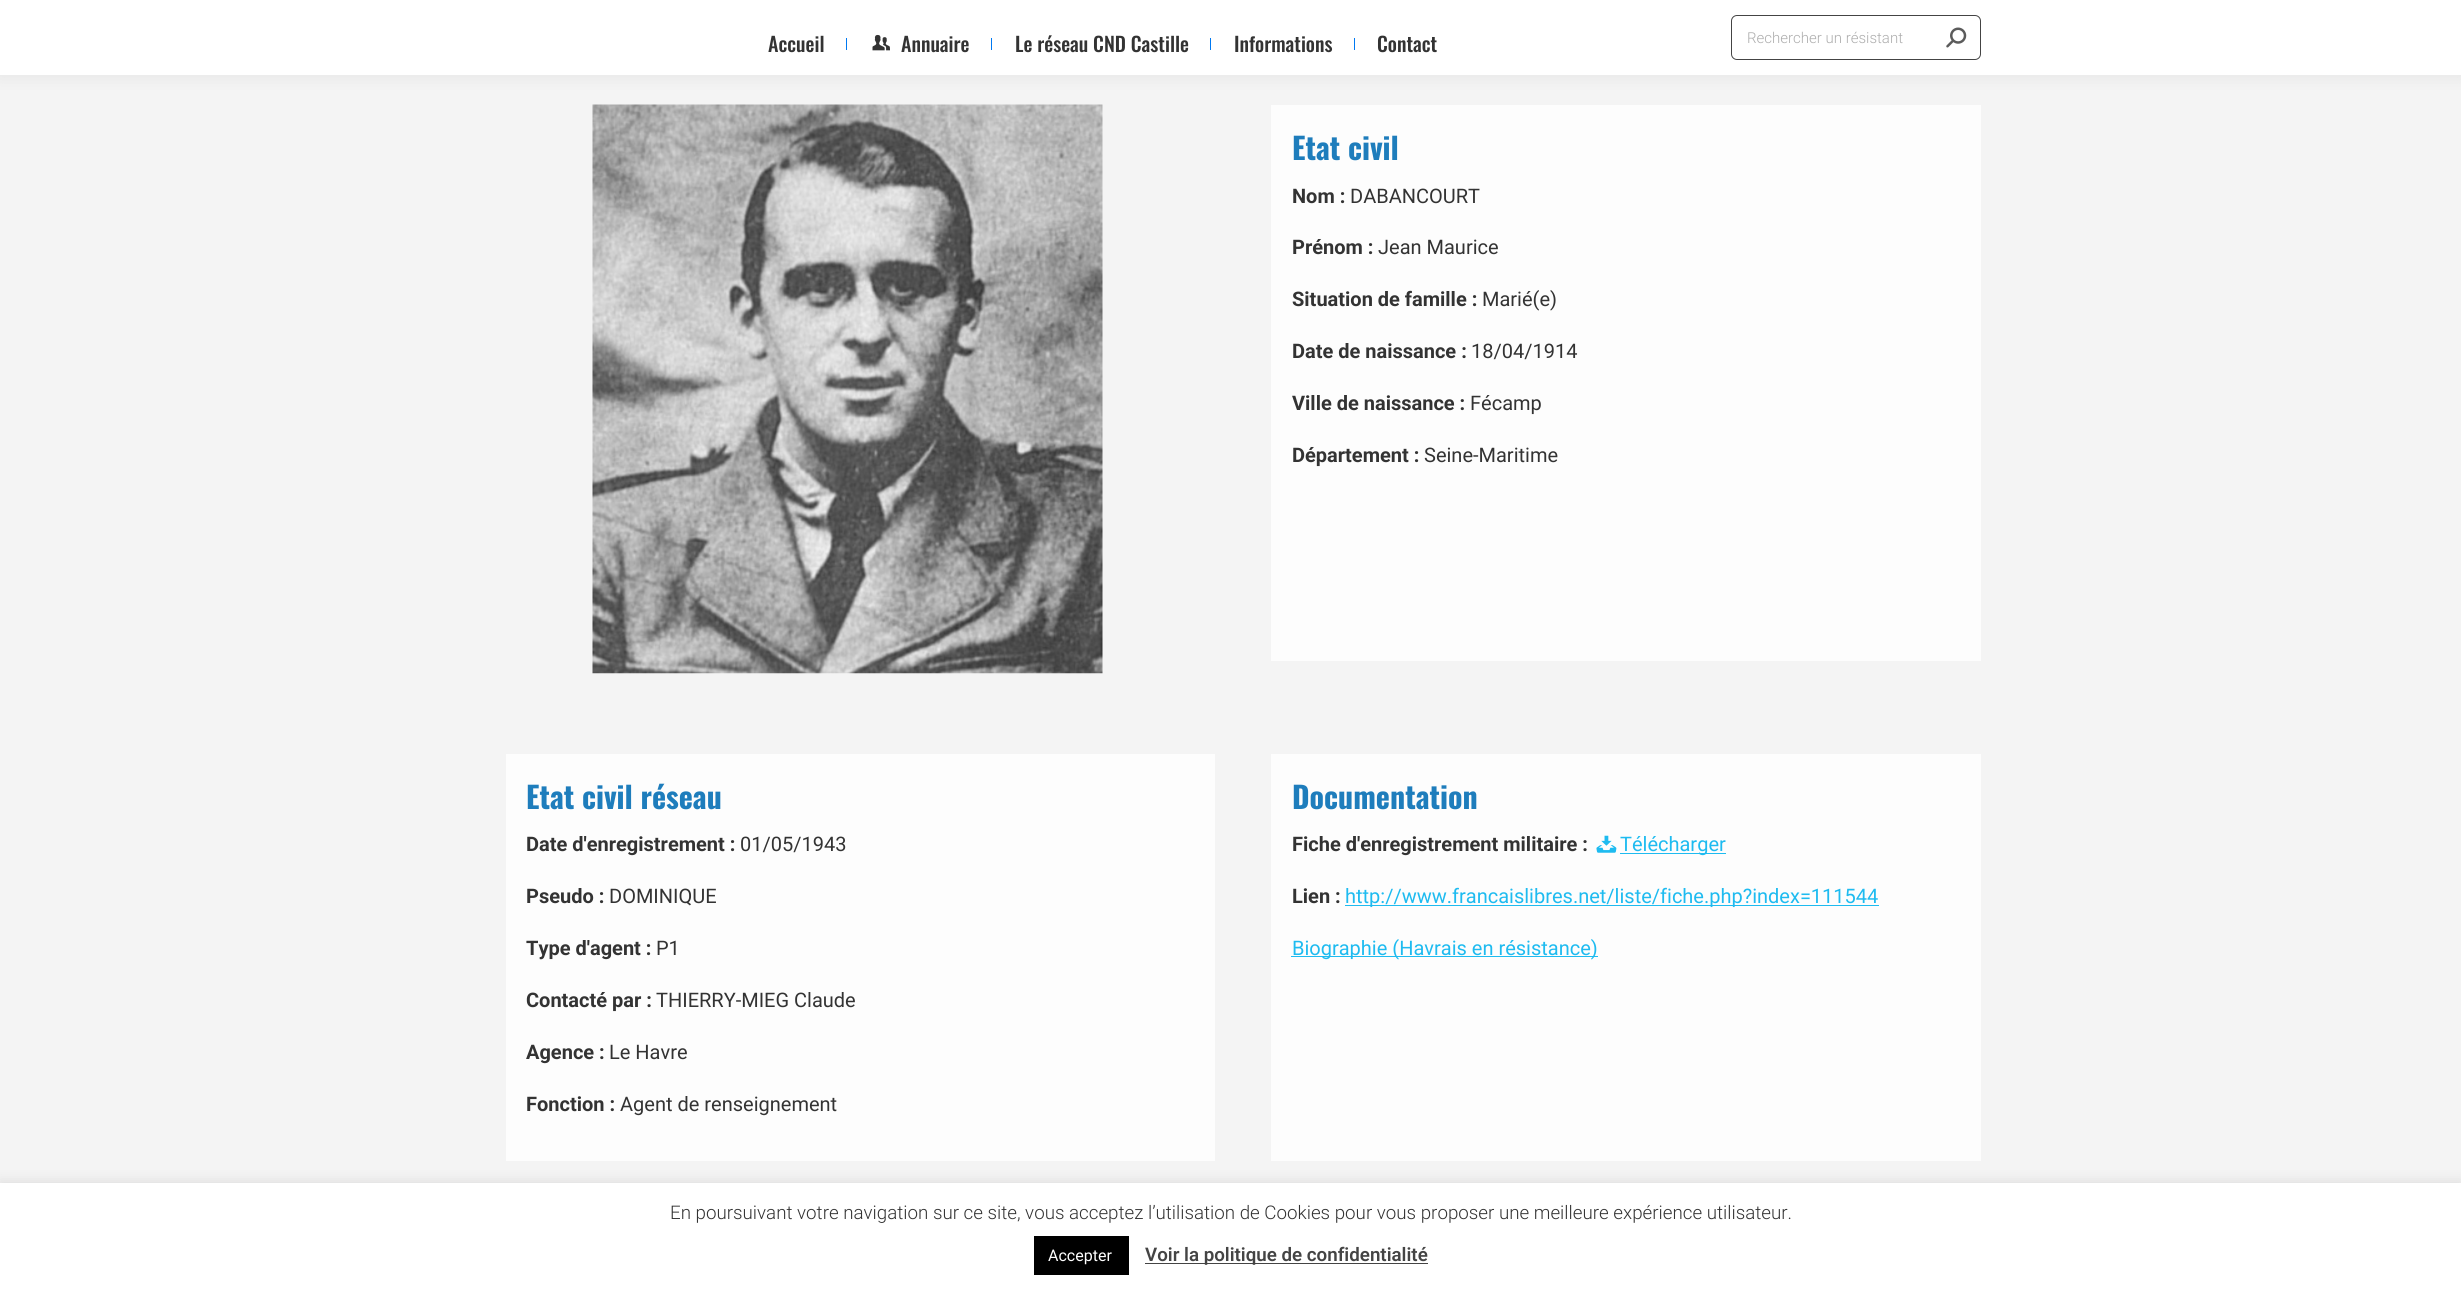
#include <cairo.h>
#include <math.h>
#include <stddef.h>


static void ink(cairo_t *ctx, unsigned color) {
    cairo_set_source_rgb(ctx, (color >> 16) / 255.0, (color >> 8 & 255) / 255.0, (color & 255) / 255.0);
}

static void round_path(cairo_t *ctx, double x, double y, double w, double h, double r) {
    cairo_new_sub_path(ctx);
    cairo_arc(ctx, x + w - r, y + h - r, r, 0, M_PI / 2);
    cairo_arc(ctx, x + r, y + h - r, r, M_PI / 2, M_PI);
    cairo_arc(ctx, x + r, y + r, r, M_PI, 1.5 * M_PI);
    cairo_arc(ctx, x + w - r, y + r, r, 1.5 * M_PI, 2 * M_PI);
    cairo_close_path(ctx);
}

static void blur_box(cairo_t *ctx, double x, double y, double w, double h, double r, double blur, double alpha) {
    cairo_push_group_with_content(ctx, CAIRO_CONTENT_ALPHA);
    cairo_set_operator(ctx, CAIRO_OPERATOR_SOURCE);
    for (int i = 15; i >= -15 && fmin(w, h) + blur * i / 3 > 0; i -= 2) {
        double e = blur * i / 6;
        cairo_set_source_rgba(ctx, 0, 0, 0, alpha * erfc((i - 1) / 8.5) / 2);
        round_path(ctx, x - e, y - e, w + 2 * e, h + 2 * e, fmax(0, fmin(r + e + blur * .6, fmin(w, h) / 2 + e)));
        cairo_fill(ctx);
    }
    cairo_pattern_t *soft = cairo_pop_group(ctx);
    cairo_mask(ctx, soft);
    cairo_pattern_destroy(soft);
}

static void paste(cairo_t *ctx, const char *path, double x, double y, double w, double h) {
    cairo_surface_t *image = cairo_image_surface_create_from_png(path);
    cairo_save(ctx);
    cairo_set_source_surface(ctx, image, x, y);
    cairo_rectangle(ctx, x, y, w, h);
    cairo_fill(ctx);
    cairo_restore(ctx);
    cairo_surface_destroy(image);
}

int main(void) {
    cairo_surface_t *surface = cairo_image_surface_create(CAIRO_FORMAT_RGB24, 2461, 1296);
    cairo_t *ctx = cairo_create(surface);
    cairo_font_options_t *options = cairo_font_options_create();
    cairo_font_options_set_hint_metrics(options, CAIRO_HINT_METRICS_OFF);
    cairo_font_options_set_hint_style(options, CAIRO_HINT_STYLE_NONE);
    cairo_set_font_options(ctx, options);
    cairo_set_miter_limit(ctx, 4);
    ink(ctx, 0xF4F4F4);
    cairo_paint(ctx);
    paste(ctx, "media/3.png", 592, 104, 511, 570);
    ink(ctx, 0xFDFDFD);
    cairo_rectangle(ctx, 1271, 105, 710, 556);
    cairo_fill(ctx);
    ink(ctx, 0x000000);
    blur_box(ctx, -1, -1, 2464, 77, 0, 9.5, 0.07);
    ink(ctx, 0xFFFFFF);
    cairo_rectangle(ctx, 0, 0, 2461, 75);
    cairo_fill(ctx);
    cairo_select_font_face(ctx, "Oswald Medium", CAIRO_FONT_SLANT_NORMAL, CAIRO_FONT_WEIGHT_NORMAL);
    cairo_set_font_size(ctx, 20);
    ink(ctx, 0x333333);
    cairo_move_to(ctx, 768, 52);
    cairo_show_text(ctx, "Accueil");
    ink(ctx, 0x0079F2);
    cairo_rectangle(ctx, 846, 38, 1, 12);
    cairo_fill(ctx);
    paste(ctx, "media/1.png", 872, 34, 18, 17);
    ink(ctx, 0x333333);
    cairo_move_to(ctx, 901, 52);
    cairo_show_text(ctx, "Annuaire");
    ink(ctx, 0x0079F2);
    cairo_rectangle(ctx, 991, 38, 1, 12);
    cairo_fill(ctx);
    ink(ctx, 0x333333);
    cairo_move_to(ctx, 1015, 52);
    cairo_show_text(ctx, "Le réseau CND Castille");
    ink(ctx, 0x0079F2);
    cairo_rectangle(ctx, 1210, 38, 1, 12);
    cairo_fill(ctx);
    ink(ctx, 0x333333);
    cairo_move_to(ctx, 1234, 52);
    cairo_show_text(ctx, "Informations");
    ink(ctx, 0x0079F2);
    cairo_rectangle(ctx, 1354, 38, 1, 12);
    cairo_fill(ctx);
    ink(ctx, 0x333333);
    cairo_move_to(ctx, 1377, 52);
    cairo_show_text(ctx, "Contact");
    round_path(ctx, 1731.5, 15.5, 249, 44, 5.5);
    ink(ctx, 0x444444);
    cairo_set_line_width(ctx, 1);
    cairo_stroke(ctx);
    cairo_select_font_face(ctx, "Roboto Light", CAIRO_FONT_SLANT_NORMAL, CAIRO_FONT_WEIGHT_NORMAL);
    cairo_set_font_size(ctx, 15);
    ink(ctx, 0xADADAD);
    cairo_move_to(ctx, 1747, 43);
    cairo_show_text(ctx, "Rechercher un résistant");
    paste(ctx, "media/2.png", 1946, 27, 21, 21);
    cairo_select_font_face(ctx, "Oswald", CAIRO_FONT_SLANT_NORMAL, CAIRO_FONT_WEIGHT_BOLD);
    cairo_set_font_size(ctx, 30);
    ink(ctx, 0x1E7DBC);
    cairo_move_to(ctx, 1292, 160);
    cairo_show_text(ctx, "Etat civil");
    cairo_select_font_face(ctx, "Roboto", CAIRO_FONT_SLANT_NORMAL, CAIRO_FONT_WEIGHT_BOLD);
    cairo_set_font_size(ctx, 20);
    ink(ctx, 0x333333);
    cairo_move_to(ctx, 1292, 203);
    cairo_show_text(ctx, "Nom :");
    cairo_select_font_face(ctx, "Roboto", CAIRO_FONT_SLANT_NORMAL, CAIRO_FONT_WEIGHT_NORMAL);
    cairo_move_to(ctx, 1350, 203);
    cairo_show_text(ctx, "DABANCOURT");
    cairo_select_font_face(ctx, "Roboto", CAIRO_FONT_SLANT_NORMAL, CAIRO_FONT_WEIGHT_BOLD);
    cairo_move_to(ctx, 1292, 254);
    cairo_show_text(ctx, "Prénom :");
    cairo_select_font_face(ctx, "Roboto", CAIRO_FONT_SLANT_NORMAL, CAIRO_FONT_WEIGHT_NORMAL);
    cairo_move_to(ctx, 1378, 254);
    cairo_show_text(ctx, "Jean Maurice");
    cairo_select_font_face(ctx, "Roboto", CAIRO_FONT_SLANT_NORMAL, CAIRO_FONT_WEIGHT_BOLD);
    cairo_move_to(ctx, 1292, 306);
    cairo_show_text(ctx, "Situation de famille :");
    cairo_select_font_face(ctx, "Roboto", CAIRO_FONT_SLANT_NORMAL, CAIRO_FONT_WEIGHT_NORMAL);
    cairo_move_to(ctx, 1482, 306);
    cairo_show_text(ctx, "Marié(e)");
    cairo_select_font_face(ctx, "Roboto", CAIRO_FONT_SLANT_NORMAL, CAIRO_FONT_WEIGHT_BOLD);
    cairo_move_to(ctx, 1292, 358);
    cairo_show_text(ctx, "Date de naissance :");
    cairo_select_font_face(ctx, "Roboto", CAIRO_FONT_SLANT_NORMAL, CAIRO_FONT_WEIGHT_NORMAL);
    cairo_move_to(ctx, 1471, 358);
    cairo_show_text(ctx, "18/04/1914");
    cairo_select_font_face(ctx, "Roboto", CAIRO_FONT_SLANT_NORMAL, CAIRO_FONT_WEIGHT_BOLD);
    cairo_move_to(ctx, 1292, 410);
    cairo_show_text(ctx, "Ville de naissance :");
    cairo_select_font_face(ctx, "Roboto", CAIRO_FONT_SLANT_NORMAL, CAIRO_FONT_WEIGHT_NORMAL);
    cairo_move_to(ctx, 1470, 410);
    cairo_show_text(ctx, "Fécamp");
    cairo_select_font_face(ctx, "Roboto", CAIRO_FONT_SLANT_NORMAL, CAIRO_FONT_WEIGHT_BOLD);
    cairo_move_to(ctx, 1292, 462);
    cairo_show_text(ctx, "Département :");
    cairo_select_font_face(ctx, "Roboto", CAIRO_FONT_SLANT_NORMAL, CAIRO_FONT_WEIGHT_NORMAL);
    cairo_move_to(ctx, 1424, 462);
    cairo_show_text(ctx, "Seine-Maritime");
    ink(ctx, 0xFDFDFD);
    cairo_rectangle(ctx, 506, 754, 709, 407);
    cairo_fill(ctx);
    cairo_select_font_face(ctx, "Oswald", CAIRO_FONT_SLANT_NORMAL, CAIRO_FONT_WEIGHT_BOLD);
    cairo_set_font_size(ctx, 30);
    ink(ctx, 0x1E7DBC);
    cairo_move_to(ctx, 526, 809);
    cairo_show_text(ctx, "Etat civil réseau");
    cairo_select_font_face(ctx, "Roboto", CAIRO_FONT_SLANT_NORMAL, CAIRO_FONT_WEIGHT_BOLD);
    cairo_set_font_size(ctx, 20);
    ink(ctx, 0x333333);
    cairo_move_to(ctx, 526, 851);
    cairo_show_text(ctx, "Date d'enregistrement :");
    cairo_select_font_face(ctx, "Roboto", CAIRO_FONT_SLANT_NORMAL, CAIRO_FONT_WEIGHT_NORMAL);
    cairo_move_to(ctx, 740, 851);
    cairo_show_text(ctx, "01/05/1943");
    cairo_select_font_face(ctx, "Roboto", CAIRO_FONT_SLANT_NORMAL, CAIRO_FONT_WEIGHT_BOLD);
    cairo_move_to(ctx, 526, 903);
    cairo_show_text(ctx, "Pseudo :");
    cairo_select_font_face(ctx, "Roboto", CAIRO_FONT_SLANT_NORMAL, CAIRO_FONT_WEIGHT_NORMAL);
    cairo_move_to(ctx, 609, 903);
    cairo_show_text(ctx, "DOMINIQUE");
    cairo_select_font_face(ctx, "Roboto", CAIRO_FONT_SLANT_NORMAL, CAIRO_FONT_WEIGHT_BOLD);
    cairo_move_to(ctx, 526, 955);
    cairo_show_text(ctx, "Type d'agent :");
    cairo_select_font_face(ctx, "Roboto", CAIRO_FONT_SLANT_NORMAL, CAIRO_FONT_WEIGHT_NORMAL);
    cairo_move_to(ctx, 656, 955);
    cairo_show_text(ctx, "P1");
    cairo_select_font_face(ctx, "Roboto", CAIRO_FONT_SLANT_NORMAL, CAIRO_FONT_WEIGHT_BOLD);
    cairo_move_to(ctx, 526, 1007);
    cairo_show_text(ctx, "Contacté par :");
    cairo_select_font_face(ctx, "Roboto", CAIRO_FONT_SLANT_NORMAL, CAIRO_FONT_WEIGHT_NORMAL);
    cairo_move_to(ctx, 656, 1007);
    cairo_show_text(ctx, "THIERRY-MIEG Claude");
    cairo_select_font_face(ctx, "Roboto", CAIRO_FONT_SLANT_NORMAL, CAIRO_FONT_WEIGHT_BOLD);
    cairo_move_to(ctx, 526, 1059);
    cairo_show_text(ctx, "Agence :");
    cairo_select_font_face(ctx, "Roboto", CAIRO_FONT_SLANT_NORMAL, CAIRO_FONT_WEIGHT_NORMAL);
    cairo_move_to(ctx, 609, 1059);
    cairo_show_text(ctx, "Le Havre");
    cairo_select_font_face(ctx, "Roboto", CAIRO_FONT_SLANT_NORMAL, CAIRO_FONT_WEIGHT_BOLD);
    cairo_move_to(ctx, 526, 1111);
    cairo_show_text(ctx, "Fonction :");
    cairo_select_font_face(ctx, "Roboto", CAIRO_FONT_SLANT_NORMAL, CAIRO_FONT_WEIGHT_NORMAL);
    cairo_move_to(ctx, 620, 1111);
    cairo_show_text(ctx, "Agent de renseignement");
    ink(ctx, 0xFDFDFD);
    cairo_rectangle(ctx, 1271, 754, 710, 407);
    cairo_fill(ctx);
    cairo_select_font_face(ctx, "Oswald", CAIRO_FONT_SLANT_NORMAL, CAIRO_FONT_WEIGHT_BOLD);
    cairo_set_font_size(ctx, 30);
    ink(ctx, 0x1E7DBC);
    cairo_move_to(ctx, 1292, 809);
    cairo_show_text(ctx, "Documentation");
    cairo_select_font_face(ctx, "Roboto", CAIRO_FONT_SLANT_NORMAL, CAIRO_FONT_WEIGHT_BOLD);
    cairo_set_font_size(ctx, 20);
    ink(ctx, 0x333333);
    cairo_move_to(ctx, 1292, 851);
    cairo_show_text(ctx, "Fiche d'enregistrement militaire :");
    paste(ctx, "media/4.png", 1596, 835, 21, 18);
    ink(ctx, 0x1EBBF0);
    cairo_rectangle(ctx, 1620, 853, 106, 1);
    cairo_fill(ctx);
    cairo_select_font_face(ctx, "Roboto", CAIRO_FONT_SLANT_NORMAL, CAIRO_FONT_WEIGHT_NORMAL);
    cairo_move_to(ctx, 1620, 851);
    cairo_show_text(ctx, "Télécharger");
    cairo_select_font_face(ctx, "Roboto", CAIRO_FONT_SLANT_NORMAL, CAIRO_FONT_WEIGHT_BOLD);
    ink(ctx, 0x333333);
    cairo_move_to(ctx, 1292, 903);
    cairo_show_text(ctx, "Lien :");
    ink(ctx, 0x1EBBF0);
    cairo_rectangle(ctx, 1345, 905, 534, 1);
    cairo_fill(ctx);
    cairo_select_font_face(ctx, "Roboto", CAIRO_FONT_SLANT_NORMAL, CAIRO_FONT_WEIGHT_NORMAL);
    cairo_move_to(ctx, 1345, 903);
    cairo_show_text(ctx, "http://www.francaislibres.net/liste/fiche.php?index=111544");
    cairo_rectangle(ctx, 1291, 956, 307, 1);
    cairo_fill(ctx);
    cairo_move_to(ctx, 1292, 955);
    cairo_show_text(ctx, "Biographie (Havrais en résistance)");
    ink(ctx, 0xACABAB);
    blur_box(ctx, 0, 1181, 2461, 114, 0, 6, 0.3);
    ink(ctx, 0xFFFFFF);
    cairo_rectangle(ctx, 0, 1183, 2461, 113);
    cairo_fill(ctx);
    cairo_select_font_face(ctx, "Roboto Light", CAIRO_FONT_SLANT_NORMAL, CAIRO_FONT_WEIGHT_NORMAL);
    cairo_set_font_size(ctx, 18.75);
    ink(ctx, 0x333333);
    cairo_move_to(ctx, 670, 1219);
    cairo_show_text(ctx, "En poursuivant votre navigation sur ce site, vous acceptez l’utilisation de Cookies pour vous proposer une meilleure expérience utilisateur.");
    ink(ctx, 0x000000);
    cairo_rectangle(ctx, 1034, 1236, 95, 39);
    cairo_fill(ctx);
    cairo_select_font_face(ctx, "Roboto", CAIRO_FONT_SLANT_NORMAL, CAIRO_FONT_WEIGHT_NORMAL);
    cairo_set_font_size(ctx, 16);
    ink(ctx, 0xFFFFFF);
    cairo_move_to(ctx, 1048, 1261);
    cairo_show_text(ctx, "Accepter");
    ink(ctx, 0x444444);
    cairo_rectangle(ctx, 1145, 1263, 283, 1);
    cairo_fill(ctx);
    cairo_select_font_face(ctx, "Roboto SemiBold", CAIRO_FONT_SLANT_NORMAL, CAIRO_FONT_WEIGHT_NORMAL);
    cairo_set_font_size(ctx, 18.75);
    cairo_move_to(ctx, 1145, 1261);
    cairo_show_text(ctx, "Voir la politique de confidentialité");
    cairo_surface_write_to_png(surface, "image.png");
    cairo_font_options_destroy(options);
    cairo_destroy(ctx);
    cairo_surface_destroy(surface);
    return 0;
}
